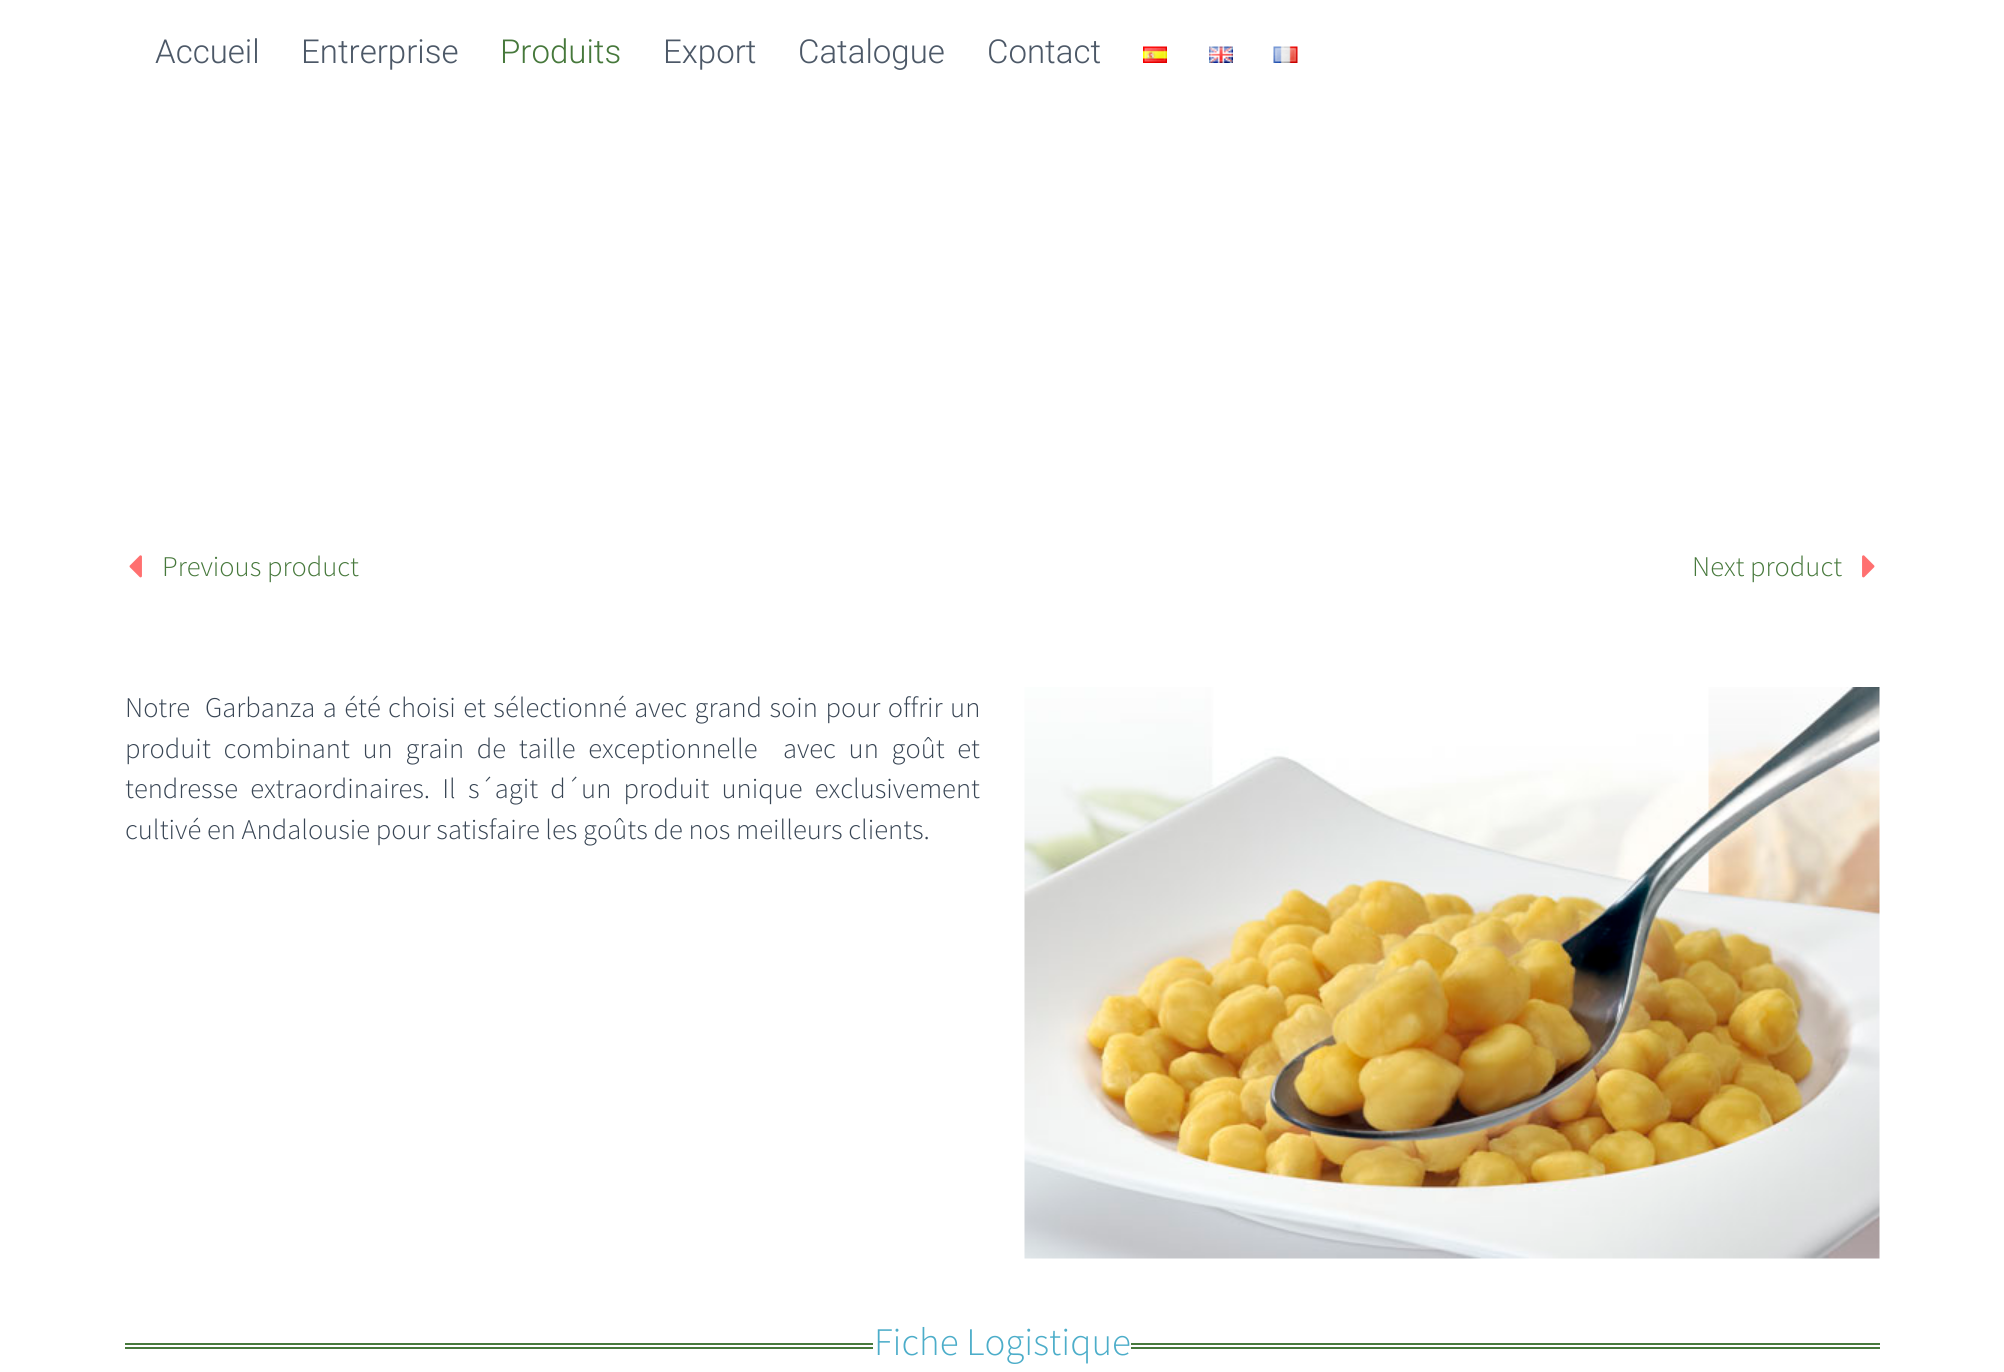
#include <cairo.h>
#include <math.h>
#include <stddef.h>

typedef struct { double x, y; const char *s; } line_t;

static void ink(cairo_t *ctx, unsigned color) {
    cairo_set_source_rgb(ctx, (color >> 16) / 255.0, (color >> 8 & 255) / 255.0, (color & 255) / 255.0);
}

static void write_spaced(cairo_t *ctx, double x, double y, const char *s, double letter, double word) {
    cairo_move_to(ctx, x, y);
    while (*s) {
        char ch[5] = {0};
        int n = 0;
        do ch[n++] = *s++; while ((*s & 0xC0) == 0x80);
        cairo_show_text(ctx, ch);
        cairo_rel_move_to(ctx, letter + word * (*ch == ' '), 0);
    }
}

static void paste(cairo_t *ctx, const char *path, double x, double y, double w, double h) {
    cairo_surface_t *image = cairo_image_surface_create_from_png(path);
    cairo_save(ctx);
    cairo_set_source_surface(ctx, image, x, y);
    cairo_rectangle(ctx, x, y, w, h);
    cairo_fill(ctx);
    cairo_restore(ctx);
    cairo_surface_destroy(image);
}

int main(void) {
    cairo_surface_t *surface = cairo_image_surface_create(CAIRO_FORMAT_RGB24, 2004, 1372);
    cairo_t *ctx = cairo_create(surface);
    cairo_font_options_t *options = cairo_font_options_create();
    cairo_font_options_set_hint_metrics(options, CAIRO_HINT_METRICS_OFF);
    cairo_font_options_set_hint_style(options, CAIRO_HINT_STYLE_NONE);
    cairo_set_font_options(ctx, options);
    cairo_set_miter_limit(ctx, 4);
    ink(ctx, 0xFFFFFF);
    cairo_paint(ctx);
    cairo_select_font_face(ctx, "Roboto Light", CAIRO_FONT_SLANT_NORMAL, CAIRO_FONT_WEIGHT_NORMAL);
    cairo_set_font_size(ctx, 33);
    ink(ctx, 0x4C5867);
    cairo_move_to(ctx, 155, 63);
    cairo_show_text(ctx, "Accueil");
    cairo_move_to(ctx, 301, 63);
    cairo_show_text(ctx, "Entrerprise");
    ink(ctx, 0x46783B);
    cairo_move_to(ctx, 500, 63);
    cairo_show_text(ctx, "Produits");
    ink(ctx, 0x4C5867);
    {
        static const line_t items[] = {
            {663, 63, "Export"},
            {798, 63, "Catalogue"},
            {987, 63, "Contact"},
        };
        for (size_t i = 0; i < sizeof items / sizeof *items; i++) {
            cairo_move_to(ctx, items[i].x, items[i].y);
            cairo_show_text(ctx, items[i].s);
        }
    }
    paste(ctx, "media/1.png", 1143, 46, 24, 17);
    paste(ctx, "media/2.png", 1209, 46, 24, 17);
    paste(ctx, "media/3.png", 1273, 46, 25, 17);
    paste(ctx, "media/4.png", 129, 555, 13, 23);
    cairo_select_font_face(ctx, "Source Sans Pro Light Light", CAIRO_FONT_SLANT_NORMAL, CAIRO_FONT_WEIGHT_NORMAL);
    cairo_set_font_size(ctx, 28.5);
    ink(ctx, 0x46783B);
    cairo_move_to(ctx, 162, 576);
    cairo_show_text(ctx, "Previous product");
    cairo_move_to(ctx, 1692, 576);
    cairo_show_text(ctx, "Next product");
    paste(ctx, "media/5.png", 1862, 555, 13, 23);
    ink(ctx, 0x384554);
    write_spaced(ctx, 125, 717, "Notre  Garbanza a été choisi et sélectionné avec grand soin pour offrir un", 0, 1.75);
    write_spaced(ctx, 125, 758, "produit combinant un grain de taille exceptionnelle  avec un goût et", 0, 7);
    write_spaced(ctx, 125, 798, "tendresse extraordinaires. Il s´agit d´un produit unique exclusivement", 0, 6.5);
    cairo_move_to(ctx, 125, 839);
    cairo_show_text(ctx, "cultivé en Andalousie pour satisfaire les goûts de nos meilleurs clients.");
    paste(ctx, "media/6.png", 1024, 687, 856, 572);
    ink(ctx, 0x47793C);
    cairo_rectangle(ctx, 125, 1343, 748, 2);
    cairo_fill(ctx);
    cairo_rectangle(ctx, 125, 1347, 748, 2);
    cairo_fill(ctx);
    cairo_set_font_size(ctx, 39);
    ink(ctx, 0x4CADC9);
    cairo_move_to(ctx, 874, 1355);
    cairo_show_text(ctx, "Fiche Logistique");
    ink(ctx, 0x47793C);
    cairo_rectangle(ctx, 1131, 1343, 749, 2);
    cairo_fill(ctx);
    cairo_rectangle(ctx, 1131, 1347, 749, 2);
    cairo_fill(ctx);
    cairo_surface_write_to_png(surface, "image.png");
    cairo_font_options_destroy(options);
    cairo_destroy(ctx);
    cairo_surface_destroy(surface);
    return 0;
}
